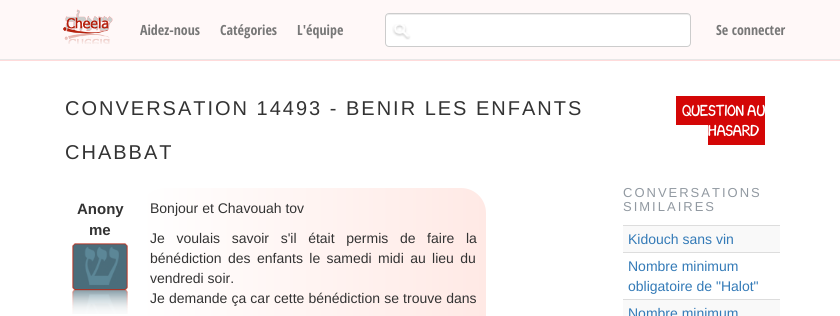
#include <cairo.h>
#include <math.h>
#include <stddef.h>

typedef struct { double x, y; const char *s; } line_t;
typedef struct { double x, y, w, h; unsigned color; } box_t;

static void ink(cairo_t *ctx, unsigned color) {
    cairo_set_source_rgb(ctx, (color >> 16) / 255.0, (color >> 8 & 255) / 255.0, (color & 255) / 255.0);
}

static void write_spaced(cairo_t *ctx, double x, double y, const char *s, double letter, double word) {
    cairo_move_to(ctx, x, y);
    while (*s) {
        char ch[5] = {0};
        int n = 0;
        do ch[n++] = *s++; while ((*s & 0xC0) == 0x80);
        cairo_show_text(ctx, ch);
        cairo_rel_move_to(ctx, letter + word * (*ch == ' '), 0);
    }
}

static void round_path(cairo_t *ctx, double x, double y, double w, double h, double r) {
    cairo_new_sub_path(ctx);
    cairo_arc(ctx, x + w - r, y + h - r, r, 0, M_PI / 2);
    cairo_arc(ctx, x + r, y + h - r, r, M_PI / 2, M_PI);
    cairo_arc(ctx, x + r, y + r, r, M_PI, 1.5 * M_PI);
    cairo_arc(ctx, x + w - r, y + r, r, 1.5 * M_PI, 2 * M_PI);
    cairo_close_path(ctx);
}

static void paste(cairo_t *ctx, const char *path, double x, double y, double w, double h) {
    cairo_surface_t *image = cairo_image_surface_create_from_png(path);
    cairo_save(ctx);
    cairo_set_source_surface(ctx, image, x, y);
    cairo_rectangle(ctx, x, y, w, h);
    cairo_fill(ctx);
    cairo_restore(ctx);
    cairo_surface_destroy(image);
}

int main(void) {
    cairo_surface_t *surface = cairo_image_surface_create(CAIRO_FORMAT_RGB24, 840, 316);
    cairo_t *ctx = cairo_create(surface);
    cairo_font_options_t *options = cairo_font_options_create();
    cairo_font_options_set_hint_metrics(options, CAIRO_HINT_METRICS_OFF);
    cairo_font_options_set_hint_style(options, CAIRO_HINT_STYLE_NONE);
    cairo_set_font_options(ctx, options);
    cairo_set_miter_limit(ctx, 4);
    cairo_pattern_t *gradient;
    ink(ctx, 0xFFFFFF);
    cairo_paint(ctx);
    {
        static const box_t items[] = {
            {0, 60, 840, 1, 0xFFDBDB},
            {0, 0, 840, 59, 0xFFF8F8},
            {0, 59, 840, 1, 0xE7E7E7},
        };
        for (size_t i = 0; i < sizeof items / sizeof *items; i++) {
            ink(ctx, items[i].color);
            cairo_rectangle(ctx, items[i].x, items[i].y, items[i].w, items[i].h);
            cairo_fill(ctx);
        }
    }
    paste(ctx, "media/1.png", 63, 9, 50, 35);
    cairo_select_font_face(ctx, "Open Sans Condensed", CAIRO_FONT_SLANT_NORMAL, CAIRO_FONT_WEIGHT_BOLD);
    cairo_set_font_size(ctx, 14);
    ink(ctx, 0x777777);
    {
        static const line_t items[] = {
            {140, 35, "Aidez-nous"},
            {220, 35, "Catégories"},
            {297, 35, "L'équipe"},
        };
        for (size_t i = 0; i < sizeof items / sizeof *items; i++) {
            cairo_move_to(ctx, items[i].x, items[i].y);
            cairo_show_text(ctx, items[i].s);
        }
    }
    ink(ctx, 0xFFFFFF);
    round_path(ctx, 385, 13, 306, 34, 4);
    cairo_fill(ctx);
    paste(ctx, "media/2.png", 392, 24, 19, 16);
    ink(ctx, 0xECECEC);
    cairo_new_path(ctx);
    cairo_move_to(ctx, 389, 15);
    cairo_line_to(ctx, 687, 15);
    cairo_curve_to(ctx, 689, 15, 690, 16, 690, 18);
    cairo_line_to(ctx, 689, 15);
    cairo_line_to(ctx, 688, 14);
    cairo_line_to(ctx, 389, 14);
    cairo_curve_to(ctx, 387, 14, 386, 16, 386, 18);
    cairo_curve_to(ctx, 386, 16, 387, 15, 389, 15);
    cairo_close_path(ctx);
    cairo_fill(ctx);
    round_path(ctx, 385.5, 13.5, 305, 33, 3.5);
    ink(ctx, 0xCCCCCC);
    cairo_set_line_width(ctx, 1);
    cairo_stroke(ctx);
    ink(ctx, 0x777777);
    cairo_move_to(ctx, 716, 35);
    cairo_show_text(ctx, "Se connecter");
    cairo_select_font_face(ctx, "Liberation Sans", CAIRO_FONT_SLANT_NORMAL, CAIRO_FONT_WEIGHT_NORMAL);
    cairo_set_font_size(ctx, 20);
    ink(ctx, 0x333333);
    write_spaced(ctx, 65, 115, "CONVERSATION 14493 - BENIR LES ENFANTS", 2, 0);
    write_spaced(ctx, 65, 159, "CHABBAT", 2, 0);
    cairo_select_font_face(ctx, "Liberation Sans", CAIRO_FONT_SLANT_NORMAL, CAIRO_FONT_WEIGHT_BOLD);
    cairo_set_font_size(ctx, 15);
    cairo_move_to(ctx, 77, 214);
    cairo_show_text(ctx, "Anony");
    cairo_move_to(ctx, 89, 235);
    cairo_show_text(ctx, "me");
    paste(ctx, "media/3.png", 72, 243, 56, 71);
    gradient = cairo_pattern_create_linear(140, 300, 486, 300);
    cairo_pattern_add_color_stop_rgba(gradient, 0, 1, 1, 1, 1);
    cairo_pattern_add_color_stop_rgba(gradient, 1, 1, 0.914, 0.898, 1);
    cairo_set_source(ctx, gradient);
    cairo_pattern_destroy(gradient);
    round_path(ctx, 140, 188, 346, 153, 25);
    cairo_fill(ctx);
    cairo_select_font_face(ctx, "Liberation Sans", CAIRO_FONT_SLANT_NORMAL, CAIRO_FONT_WEIGHT_NORMAL);
    cairo_set_font_size(ctx, 14);
    ink(ctx, 0x333333);
    cairo_move_to(ctx, 150, 213);
    cairo_show_text(ctx, "Bonjour et Chavouah tov");
    write_spaced(ctx, 150, 243, "Je voulais savoir s'il était permis de faire la", 0, 7.75);
    write_spaced(ctx, 150, 263, "bénédiction des enfants le samedi midi au lieu du", 0, 2.5);
    cairo_move_to(ctx, 150, 283);
    cairo_show_text(ctx, "vendredi soir.");
    write_spaced(ctx, 150, 303, "Je demande ça car cette bénédiction se trouve dans", 0, 0.25);
    ink(ctx, 0xD40606);
    cairo_rectangle(ctx, 676, 96, 89, 29);
    cairo_fill(ctx);
    cairo_select_font_face(ctx, "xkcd", CAIRO_FONT_SLANT_NORMAL, CAIRO_FONT_WEIGHT_NORMAL);
    ink(ctx, 0xFFFFFF);
    cairo_move_to(ctx, 682, 116);
    cairo_show_text(ctx, "Question au");
    ink(ctx, 0xD40606);
    cairo_rectangle(ctx, 708, 125, 57, 20);
    cairo_fill(ctx);
    ink(ctx, 0xFFFFFF);
    cairo_move_to(ctx, 708, 136);
    cairo_show_text(ctx, "hasard");
    cairo_select_font_face(ctx, "Liberation Sans", CAIRO_FONT_SLANT_NORMAL, CAIRO_FONT_WEIGHT_NORMAL);
    cairo_set_font_size(ctx, 13);
    ink(ctx, 0x9199A1);
    write_spaced(ctx, 623, 197, "CONVERSATIONS", 2, 0);
    write_spaced(ctx, 623, 211, "SIMILAIRES", 2, 0);
    ink(ctx, 0xF9F9F9);
    cairo_rectangle(ctx, 623, 226, 157, 26);
    cairo_fill(ctx);
    ink(ctx, 0xDDDDDD);
    cairo_rectangle(ctx, 623, 225, 157, 1);
    cairo_fill(ctx);
    cairo_set_font_size(ctx, 14);
    ink(ctx, 0x337AB7);
    cairo_move_to(ctx, 628, 244);
    cairo_show_text(ctx, "Kidouch sans vin");
    ink(ctx, 0xDDDDDD);
    cairo_rectangle(ctx, 623, 252, 157, 1);
    cairo_fill(ctx);
    ink(ctx, 0x337AB7);
    cairo_move_to(ctx, 628, 271);
    cairo_show_text(ctx, "Nombre minimum");
    cairo_move_to(ctx, 628, 291);
    cairo_show_text(ctx, "obligatoire de \"Halot\"");
    ink(ctx, 0xF9F9F9);
    cairo_rectangle(ctx, 623, 300, 157, 16);
    cairo_fill(ctx);
    ink(ctx, 0xDDDDDD);
    cairo_rectangle(ctx, 623, 299, 157, 1);
    cairo_fill(ctx);
    ink(ctx, 0x337AB7);
    cairo_move_to(ctx, 628, 318);
    cairo_show_text(ctx, "Nombre minimum");
    cairo_surface_write_to_png(surface, "image.png");
    cairo_font_options_destroy(options);
    cairo_destroy(ctx);
    cairo_surface_destroy(surface);
    return 0;
}
